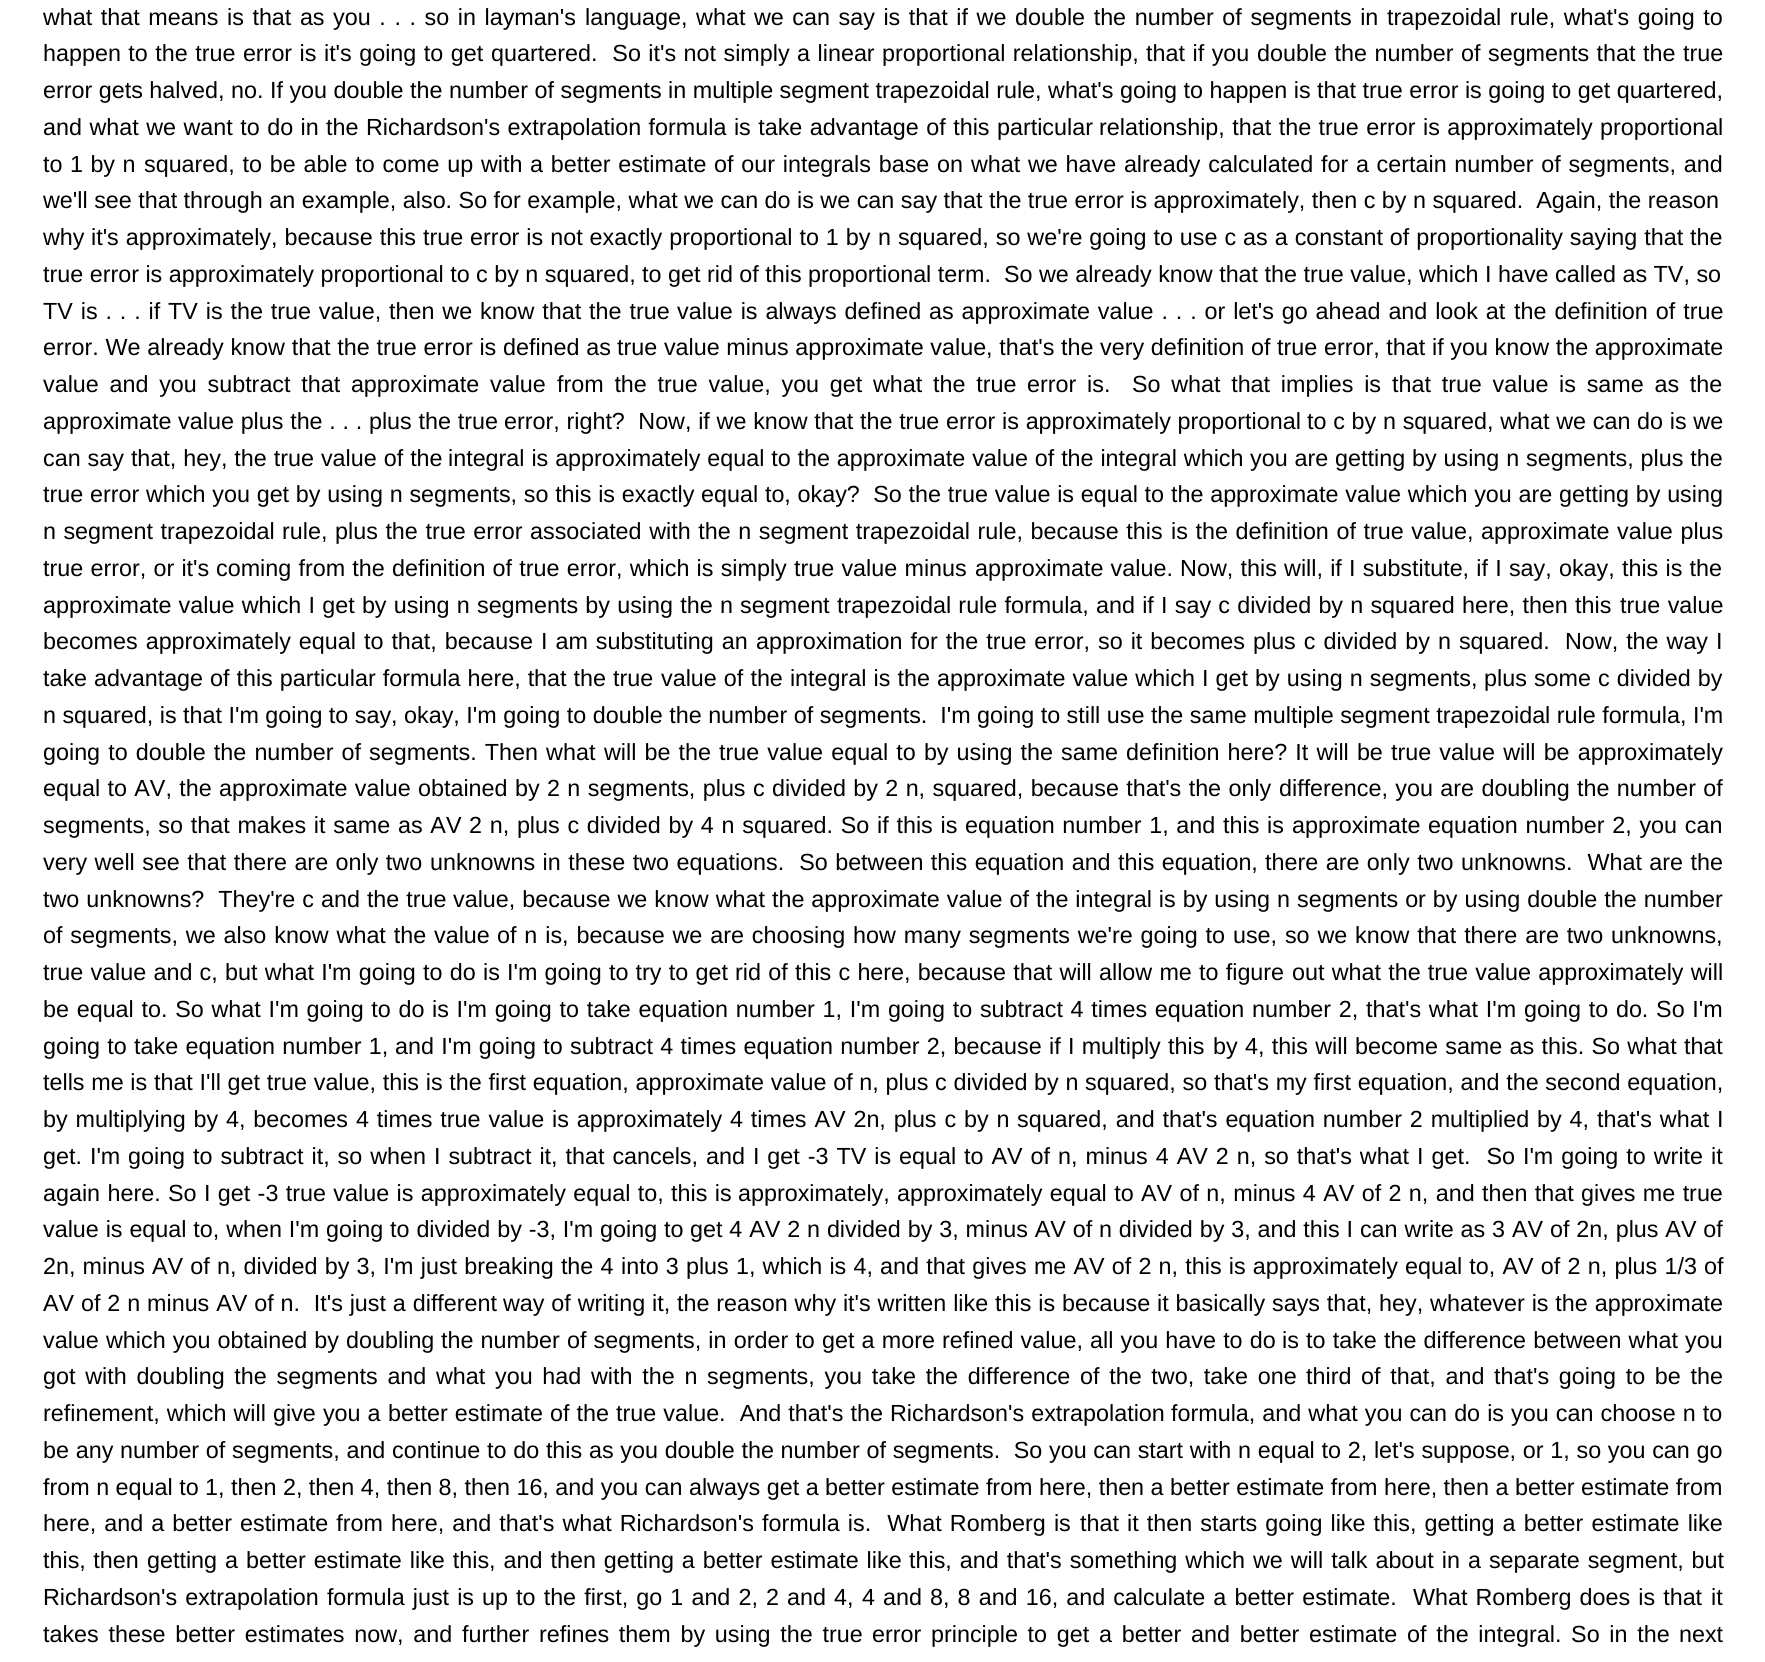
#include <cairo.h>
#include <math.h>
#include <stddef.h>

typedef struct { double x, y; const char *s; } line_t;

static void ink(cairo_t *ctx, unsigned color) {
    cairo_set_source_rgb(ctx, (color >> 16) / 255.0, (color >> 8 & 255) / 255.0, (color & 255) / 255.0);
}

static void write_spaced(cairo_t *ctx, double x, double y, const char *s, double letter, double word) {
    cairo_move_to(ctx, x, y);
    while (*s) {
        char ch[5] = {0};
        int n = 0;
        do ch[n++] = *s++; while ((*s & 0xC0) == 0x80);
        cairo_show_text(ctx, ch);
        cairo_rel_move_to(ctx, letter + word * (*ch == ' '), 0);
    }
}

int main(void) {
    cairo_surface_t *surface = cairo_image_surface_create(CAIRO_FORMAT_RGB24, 1765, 1662);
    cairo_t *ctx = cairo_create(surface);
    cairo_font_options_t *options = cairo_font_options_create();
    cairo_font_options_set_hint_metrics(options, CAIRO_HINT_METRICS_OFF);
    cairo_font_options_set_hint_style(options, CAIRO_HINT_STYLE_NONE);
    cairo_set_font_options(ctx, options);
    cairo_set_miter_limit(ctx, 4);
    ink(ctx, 0xFFFFFF);
    cairo_paint(ctx);
    cairo_select_font_face(ctx, "Liberation Sans", CAIRO_FONT_SLANT_NORMAL, CAIRO_FONT_WEIGHT_NORMAL);
    cairo_set_font_size(ctx, 23.33);
    ink(ctx, 0x000000);
    {
        static const line_t items[] = {
            {43, 25, "what that means is that as you . . . so in layman's"},
            {585, 25, "language, what we can say is that if we double the number of segments in"},
            {1387, 25, "trapezoidal rule, what's going to"},
        };
        for (size_t i = 0; i < sizeof items / sizeof *items; i++) {
            write_spaced(ctx, items[i].x, items[i].y, items[i].s, 0, 2.1);
        }
    }
    {
        static const line_t items[] = {
            {43, 61, "happen to the true error is it's going to get"},
            {491, 61, "quartered.  So it's not simply a linear proportional relationship, that if you"},
            {1257, 61, "double the number of segments that the true"},
        };
        for (size_t i = 0; i < sizeof items / sizeof *items; i++) {
            write_spaced(ctx, items[i].x, items[i].y, items[i].s, 0, 1);
        }
    }
    cairo_move_to(ctx, 43, 98);
    cairo_show_text(ctx, "error gets halved, no. If you double the number of segments in multiple segment trapezoidal rule, what's going to happen is that true error is going to get quartered,");
    {
        static const line_t items[] = {
            {43, 135, "and what we want to do in"},
            {326, 135, "the Richardson's extrapolation formula is take advantage of this particular"},
            {1099, 135, "relationship, that the true error is approximately proportional"},
            {43, 172, "to 1 by n"},
        };
        for (size_t i = 0; i < sizeof items / sizeof *items; i++) {
            write_spaced(ctx, items[i].x, items[i].y, items[i].s, 0, 1);
        }
    }
    write_spaced(ctx, 144, 172, "squared, to be able to come up with a better estimate of our integrals base on", 0, 1.25);
    write_spaced(ctx, 971, 172, "what we have already calculated for a certain number of segments, and", 0, 1.25);
    cairo_move_to(ctx, 43, 208);
    cairo_show_text(ctx, "we'll see that through an example, also. So for example, what we can do is we can say that the true error is approximately, then c by n squared.  Again, the reason");
    cairo_move_to(ctx, 43, 245);
    cairo_show_text(ctx, "why");
    write_spaced(ctx, 91, 245, "it's approximately, because this true error is not exactly proportional to 1 by", 0, 0.5);
    write_spaced(ctx, 878, 245, "n squared, so we're going to use c as a constant of proportionality saying that", 0, 0.5);
    cairo_move_to(ctx, 1690, 245);
    cairo_show_text(ctx, "the");
    cairo_move_to(ctx, 43, 282);
    cairo_show_text(ctx, "true error is approximately proportional to c by n squared, to get rid of this proportional term.  So we already know that the true value, which I have called as TV, so");
    write_spaced(ctx, 43, 319, "TV is . . . if TV is the true value, then we know that the true", 0, 1.4);
    write_spaced(ctx, 677, 319, "value is always defined as approximate value . . . or let's go ahead and look at", 0, 1.4);
    write_spaced(ctx, 1514, 319, "the definition of true", 0, 1.5);
    write_spaced(ctx, 43, 355, "error. We already know that the true error is defined as", 0, 0.25);
    write_spaced(ctx, 617, 355, "true value minus approximate value, that's the very definition of true error, that if you know the approximate", 0, 0.2);
    {
        static const line_t items[] = {
            {43, 392, "value and you subtract that approximate value"},
            {557, 392, "from the true value, you get what the true error is.  So what that implies is"},
            {1392, 392, "that true value is same as the"},
        };
        for (size_t i = 0; i < sizeof items / sizeof *items; i++) {
            write_spaced(ctx, items[i].x, items[i].y, items[i].s, 0, 4.25);
        }
    }
    {
        static const line_t items[] = {
            {43, 429, "approximate value plus the . . . plus the true"},
            {504, 429, "error, right?  Now, if we know that the true error is approximately proportional"},
            {1307, 429, "to c by n squared, what we can do is we"},
        };
        for (size_t i = 0; i < sizeof items / sizeof *items; i++) {
            write_spaced(ctx, items[i].x, items[i].y, items[i].s, 0, 0.25);
        }
    }
    write_spaced(ctx, 43, 466, "can say that, hey, the true value of the", 0, 0.5);
    write_spaced(ctx, 448, 466, "integral is approximately equal to the approximate value of the integral which", 0, 0.4);
    write_spaced(ctx, 1250, 466, "you are getting by using n segments, plus the", 0, 0.4);
    write_spaced(ctx, 43, 502, "true error which you get by using n segments, so this is exactly equal to, okay?  So the true value is equal to", 0, 0.25);
    write_spaced(ctx, 1171, 502, "the approximate value which you are getting by using", 0, 0.25);
    write_spaced(ctx, 43, 539, "n segment trapezoidal rule,", 0, 1);
    write_spaced(ctx, 335, 539, "plus the true error associated with the n segment trapezoidal rule, because this", 0, 1.1);
    write_spaced(ctx, 1171, 539, "is the definition of true value, approximate value plus", 0, 1.1);
    {
        static const line_t items[] = {
            {43, 576, "true error, or it's"},
            {216, 576, "coming from the definition of true error, which is simply true value minus"},
            {975, 576, "approximate value. Now, this will, if I substitute, if I say, okay, this is the"},
            {43, 613, "approximate value which I get by using n segments by using the n segment"},
            {837, 613, "trapezoidal rule formula, and if I say c divided by n squared here, then this"},
        };
        for (size_t i = 0; i < sizeof items / sizeof *items; i++) {
            write_spaced(ctx, items[i].x, items[i].y, items[i].s, 0, 0.75);
        }
    }
    write_spaced(ctx, 1620, 613, "true value", 0, 1);
    {
        static const line_t items[] = {
            {43, 649, "becomes approximately equal to that, because I am substituting an"},
            {756, 649, "approximation for the true error, so it becomes plus c divided by n squared."},
            {1565, 649, "Now, the way I"},
        };
        for (size_t i = 0; i < sizeof items / sizeof *items; i++) {
            write_spaced(ctx, items[i].x, items[i].y, items[i].s, 0, 1.5);
        }
    }
    write_spaced(ctx, 43, 686, "take advantage of this particular formula here, that the true", 0, 0.5);
    write_spaced(ctx, 661, 686, "value of the integral is the approximate value which I get by using n segments,", 0, 0.6);
    write_spaced(ctx, 1484, 686, "plus some c divided by", 0, 0.6);
    cairo_move_to(ctx, 43, 723);
    cairo_show_text(ctx, "n squared, is that I'm going to say, okay, I'm going to double the number of segments.  I'm going to still use the same multiple segment trapezoidal rule formula, I'm");
    {
        static const line_t items[] = {
            {43, 760, "going to double the number of segments. Then what"},
            {604, 760, "will be the true value equal to by using the same definition here? It will be"},
            {1391, 760, "true value will be approximately"},
        };
        for (size_t i = 0; i < sizeof items / sizeof *items; i++) {
            write_spaced(ctx, items[i].x, items[i].y, items[i].s, 0, 1.6);
        }
    }
    {
        static const line_t items[] = {
            {43, 796, "equal to AV, the approximate value obtained by"},
            {547, 796, "2 n segments, plus c divided by 2 n, squared, because that's the only"},
            {1279, 796, "difference, you are doubling the number of"},
        };
        for (size_t i = 0; i < sizeof items / sizeof *items; i++) {
            write_spaced(ctx, items[i].x, items[i].y, items[i].s, 0, 0.9);
        }
    }
    {
        static const line_t items[] = {
            {43, 833, "segments, so that makes it same as AV"},
            {469, 833, "2 n, plus c divided by 4 n squared. So if this is equation number 1, and this is"},
            {1292, 833, "approximate equation number 2, you can"},
        };
        for (size_t i = 0; i < sizeof items / sizeof *items; i++) {
            write_spaced(ctx, items[i].x, items[i].y, items[i].s, 0, 1.25);
        }
    }
    {
        static const line_t items[] = {
            {43, 870, "very well see that there are only two"},
            {430, 870, "unknowns in these two equations.  So between this equation and this equation,"},
            {1265, 870, "there are only two unknowns.  What are the"},
        };
        for (size_t i = 0; i < sizeof items / sizeof *items; i++) {
            write_spaced(ctx, items[i].x, items[i].y, items[i].s, 0, 1);
        }
    }
    {
        static const line_t items[] = {
            {43, 907, "two unknowns?  They're c and the true"},
            {453, 907, "value, because we know what the approximate value of the integral is by using n"},
            {1297, 907, "segments or by using double the number"},
        };
        for (size_t i = 0; i < sizeof items / sizeof *items; i++) {
            write_spaced(ctx, items[i].x, items[i].y, items[i].s, 0, 0.5);
        }
    }
    {
        static const line_t items[] = {
            {43, 943, "of segments, we also know what the value"},
            {497, 943, "of n is, because we are choosing how many segments we're going to use, so we"},
            {1355, 943, "know that there are two unknowns,"},
        };
        for (size_t i = 0; i < sizeof items / sizeof *items; i++) {
            write_spaced(ctx, items[i].x, items[i].y, items[i].s, 0, 1.4);
        }
    }
    {
        static const line_t items[] = {
            {43, 980, "true value and c, but what I'm going to do is"},
            {507, 980, "I'm going to try to get rid of this c here, because that will allow me to figure"},
            {1292, 980, "out what the true value approximately will"},
        };
        for (size_t i = 0; i < sizeof items / sizeof *items; i++) {
            write_spaced(ctx, items[i].x, items[i].y, items[i].s, 0, 0.75);
        }
    }
    {
        static const line_t items[] = {
            {43, 1017, "be equal to. So what I'm going to do"},
            {432, 1017, "is I'm going to take equation number 1, I'm going to subtract 4 times equation"},
            {1252, 1017, "number 2, that's what I'm going to do. So I'm"},
        };
        for (size_t i = 0; i < sizeof items / sizeof *items; i++) {
            write_spaced(ctx, items[i].x, items[i].y, items[i].s, 0, 1.25);
        }
    }
    {
        static const line_t items[] = {
            {43, 1054, "going to take equation number 1,"},
            {395, 1054, "and I'm going to subtract 4 times equation number 2, because if I multiply this"},
            {1213, 1054, "by 4, this will become same as this. So what that"},
        };
        for (size_t i = 0; i < sizeof items / sizeof *items; i++) {
            write_spaced(ctx, items[i].x, items[i].y, items[i].s, 0, 0.8);
        }
    }
    write_spaced(ctx, 43, 1090, "tells me is that I'll get true value, this is the first equation, approximate value of n, plus c divided by n", 0, 0.25);
    write_spaced(ctx, 1085, 1090, "squared, so that's my first equation, and the second equation,", 0, 0.25);
    {
        static const line_t items[] = {
            {43, 1127, "by multiplying by"},
            {226, 1127, "4, becomes 4 times true value is approximately 4 times AV 2n, plus c by n"},
            {1017, 1127, "squared, and that's equation number 2 multiplied by 4, that's what I"},
        };
        for (size_t i = 0; i < sizeof items / sizeof *items; i++) {
            write_spaced(ctx, items[i].x, items[i].y, items[i].s, 0, 1.4);
        }
    }
    {
        static const line_t items[] = {
            {43, 1164, "get. I'm"},
            {128, 1164, "going to subtract it, so when I subtract it, that cancels, and I get -3 TV is"},
            {899, 1164, "equal to AV of n, minus 4 AV 2 n, so that's what I get.  So I'm going to write"},
        };
        for (size_t i = 0; i < sizeof items / sizeof *items; i++) {
            write_spaced(ctx, items[i].x, items[i].y, items[i].s, 0, 1.5);
        }
    }
    cairo_move_to(ctx, 1711, 1164);
    cairo_show_text(ctx, "it");
    {
        static const line_t items[] = {
            {43, 1201, "again here. So I get -3 true value is approximately equal to, this is"},
            {738, 1201, "approximately, approximately equal to AV of n, minus 4 AV of 2 n, and then that"},
            {1581, 1201, "gives me true"},
        };
        for (size_t i = 0; i < sizeof items / sizeof *items; i++) {
            write_spaced(ctx, items[i].x, items[i].y, items[i].s, 0, 0.9);
        }
    }
    {
        static const line_t items[] = {
            {43, 1237, "value is equal to, when I'm going to divided by -3, I'm going to"},
            {690, 1237, "get 4 AV 2 n divided by 3, minus AV of n divided by 3, and this I can write as 3"},
            {1512, 1237, "AV of 2n, plus AV of"},
        };
        for (size_t i = 0; i < sizeof items / sizeof *items; i++) {
            write_spaced(ctx, items[i].x, items[i].y, items[i].s, 0, 0.4);
        }
    }
    write_spaced(ctx, 43, 1274, "2n, minus AV of n, divided by 3, I'm just breaking the 4", 0, 0.7);
    write_spaced(ctx, 621, 1274, "into 3 plus 1, which is 4, and that gives me AV of 2 n, this is approximately", 0, 0.7);
    write_spaced(ctx, 1405, 1274, "equal to, AV of 2 n, plus 1/3 of", 0, 0.75);
    {
        static const line_t items[] = {
            {43, 1311, "AV of 2 n minus AV of n.  It's just a different"},
            {503, 1311, "way of writing it, the reason why it's written like this is because it basically"},
            {1272, 1311, "says that, hey, whatever is the approximate"},
        };
        for (size_t i = 0; i < sizeof items / sizeof *items; i++) {
            write_spaced(ctx, items[i].x, items[i].y, items[i].s, 0, 0.4);
        }
    }
    {
        static const line_t items[] = {
            {43, 1348, "value which you obtained by doubling"},
            {441, 1348, "the number of segments, in order to get a more refined value, all you have to do"},
            {1282, 1348, "is to take the difference between what you"},
        };
        for (size_t i = 0; i < sizeof items / sizeof *items; i++) {
            write_spaced(ctx, items[i].x, items[i].y, items[i].s, 0, 0.7);
        }
    }
    {
        static const line_t items[] = {
            {43, 1384, "got with doubling the segments and"},
            {436, 1384, "what you had with the n segments, you take the difference of the two, take one"},
            {1306, 1384, "third of that, and that's going to be the"},
        };
        for (size_t i = 0; i < sizeof items / sizeof *items; i++) {
            write_spaced(ctx, items[i].x, items[i].y, items[i].s, 0, 3.25);
        }
    }
    {
        static const line_t items[] = {
            {43, 1421, "refinement, which will give you a"},
            {388, 1421, "better estimate of the true value.  And that's the Richardson's extrapolation"},
            {1171, 1421, "formula, and what you can do is you can choose n to"},
        };
        for (size_t i = 0; i < sizeof items / sizeof *items; i++) {
            write_spaced(ctx, items[i].x, items[i].y, items[i].s, 0, 0.6);
        }
    }
    write_spaced(ctx, 43, 1458, "be any number of segments, and continue to do this as you double the number of segments.  So you can start with n equal to 2, let's suppose, or 1, so you can go", 0, 0.25);
    cairo_move_to(ctx, 43, 1495);
    cairo_show_text(ctx, "from n equal to 1, then 2, then 4, then 8, then 16, and you can always get a better estimate from here, then a better estimate from here, then a better estimate from");
    {
        static const line_t items[] = {
            {43, 1531, "here, and a better"},
            {240, 1531, "estimate from here, and that's what Richardson's formula is.  What Romberg is"},
            {1080, 1531, "that it then starts going like this, getting a better estimate like"},
        };
        for (size_t i = 0; i < sizeof items / sizeof *items; i++) {
            write_spaced(ctx, items[i].x, items[i].y, items[i].s, 0, 1.6);
        }
    }
    write_spaced(ctx, 43, 1568, "this, then", 0, 1);
    write_spaced(ctx, 147, 1568, "getting a better estimate like this, and then getting a better estimate like", 0, 1.5);
    write_spaced(ctx, 909, 1568, "this, and that's something which we will talk about in a separate segment, but", 0, 1.5);
    write_spaced(ctx, 43, 1605, "Richardson's extrapolation formula just is up to the first, go 1 and 2, 2 and 4,", 0, 1.6);
    write_spaced(ctx, 862, 1605, "4 and 8, 8 and 16, and calculate a better estimate.  What Romberg does is that", 0, 1.6);
    cairo_move_to(ctx, 1711, 1605);
    cairo_show_text(ctx, "it");
    write_spaced(ctx, 43, 1642, "takes these better estimates now, and further refines them by using the true", 0, 3.25);
    write_spaced(ctx, 872, 1642, "error principle to get a better and better estimate of the integral. So in the", 0, 3.25);
    cairo_move_to(ctx, 1679, 1642);
    cairo_show_text(ctx, "next");
    cairo_surface_write_to_png(surface, "image.png");
    cairo_font_options_destroy(options);
    cairo_destroy(ctx);
    cairo_surface_destroy(surface);
    return 0;
}
